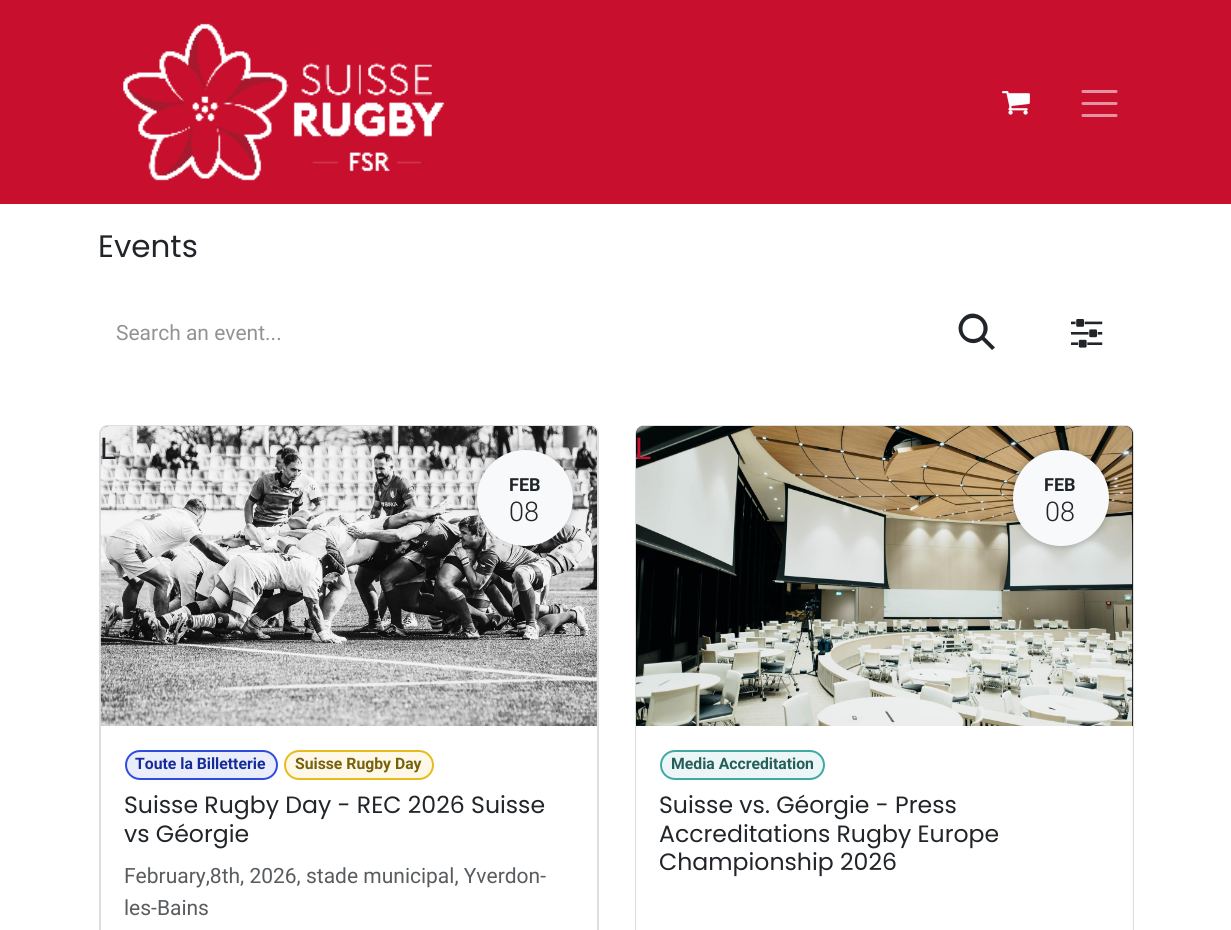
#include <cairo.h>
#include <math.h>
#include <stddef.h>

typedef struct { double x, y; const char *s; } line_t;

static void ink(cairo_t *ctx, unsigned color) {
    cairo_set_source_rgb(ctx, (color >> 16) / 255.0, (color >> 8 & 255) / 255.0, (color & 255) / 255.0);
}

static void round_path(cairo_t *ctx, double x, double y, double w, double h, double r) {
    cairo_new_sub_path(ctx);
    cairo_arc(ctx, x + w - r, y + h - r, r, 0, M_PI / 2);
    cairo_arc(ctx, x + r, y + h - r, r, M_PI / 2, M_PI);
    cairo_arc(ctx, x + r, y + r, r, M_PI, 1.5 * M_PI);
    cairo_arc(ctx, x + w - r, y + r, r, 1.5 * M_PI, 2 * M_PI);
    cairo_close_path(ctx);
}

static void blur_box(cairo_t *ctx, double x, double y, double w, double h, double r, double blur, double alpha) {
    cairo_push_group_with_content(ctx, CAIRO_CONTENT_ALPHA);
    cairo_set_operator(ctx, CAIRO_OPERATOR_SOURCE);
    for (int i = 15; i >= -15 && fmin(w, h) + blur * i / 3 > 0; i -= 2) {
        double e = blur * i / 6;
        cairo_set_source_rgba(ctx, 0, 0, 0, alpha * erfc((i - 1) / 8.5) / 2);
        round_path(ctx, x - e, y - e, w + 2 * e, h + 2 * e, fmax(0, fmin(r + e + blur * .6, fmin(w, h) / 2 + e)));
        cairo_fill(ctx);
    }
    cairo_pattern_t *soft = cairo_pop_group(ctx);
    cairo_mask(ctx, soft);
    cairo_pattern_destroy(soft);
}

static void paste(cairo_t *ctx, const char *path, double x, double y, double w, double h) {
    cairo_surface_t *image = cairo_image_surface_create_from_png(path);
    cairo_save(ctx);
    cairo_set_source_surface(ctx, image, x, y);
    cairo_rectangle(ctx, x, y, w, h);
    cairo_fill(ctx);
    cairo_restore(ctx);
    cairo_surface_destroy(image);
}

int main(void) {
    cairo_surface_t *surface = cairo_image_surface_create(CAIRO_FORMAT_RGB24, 1231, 930);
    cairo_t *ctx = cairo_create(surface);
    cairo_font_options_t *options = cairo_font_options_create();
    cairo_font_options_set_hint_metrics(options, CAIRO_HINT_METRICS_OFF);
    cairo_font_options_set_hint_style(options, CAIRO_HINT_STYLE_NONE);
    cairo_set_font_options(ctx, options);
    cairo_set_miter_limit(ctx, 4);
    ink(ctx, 0xFFFFFF);
    cairo_paint(ctx);
    ink(ctx, 0xC8102E);
    cairo_rectangle(ctx, 0, 0, 1231, 204);
    cairo_fill(ctx);
    paste(ctx, "media/1.png", 123, 23, 322, 158);
    paste(ctx, "media/2.png", 1002, 91, 28, 24);
    cairo_new_path(ctx);
    cairo_move_to(ctx, 1083, 91.5);
    cairo_line_to(ctx, 1116, 91.5);
    cairo_move_to(ctx, 1083, 103.5);
    cairo_line_to(ctx, 1116, 103.5);
    cairo_move_to(ctx, 1083, 115.5);
    cairo_line_to(ctx, 1116, 115.5);
    ink(ctx, 0xE693A1);
    cairo_set_line_width(ctx, 3);
    cairo_set_line_cap(ctx, CAIRO_LINE_CAP_ROUND);
    cairo_stroke(ctx);
    cairo_select_font_face(ctx, "Poppins", CAIRO_FONT_SLANT_NORMAL, CAIRO_FONT_WEIGHT_NORMAL);
    cairo_set_font_size(ctx, 31);
    ink(ctx, 0x212529);
    cairo_move_to(ctx, 98, 257);
    cairo_show_text(ctx, "Events");
    cairo_select_font_face(ctx, "Roboto", CAIRO_FONT_SLANT_NORMAL, CAIRO_FONT_WEIGHT_NORMAL);
    cairo_set_font_size(ctx, 21);
    ink(ctx, 0x909294);
    cairo_move_to(ctx, 116, 340);
    cairo_show_text(ctx, "Search an event...");
    ink(ctx, 0x212529);
    cairo_new_path(ctx);
    cairo_move_to(ctx, 962, 319);
    cairo_curve_to(ctx, 973.5, 304.5, 996, 322, 984.5, 337);
    cairo_line_to(ctx, 995, 347.5);
    cairo_line_to(ctx, 992, 350);
    cairo_line_to(ctx, 982, 340);
    cairo_curve_to(ctx, 968.5, 350.5, 951, 332.5, 962, 319);
    cairo_close_path(ctx);
    cairo_move_to(ctx, 973, 318);
    cairo_curve_to(ctx, 959, 318, 959, 339, 973, 339);
    cairo_curve_to(ctx, 987, 339, 987, 318, 973, 318);
    cairo_close_path(ctx);
    cairo_fill(ctx);
    paste(ctx, "media/3.png", 1071, 319, 32, 29);
    round_path(ctx, 100, 426, 498, 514, 8);
    ink(ctx, 0xDEDEDF);
    cairo_set_line_width(ctx, 2);
    cairo_set_line_cap(ctx, CAIRO_LINE_CAP_BUTT);
    cairo_stroke(ctx);
    ink(ctx, 0x000000);
    cairo_new_path(ctx);
    cairo_move_to(ctx, 109, 426);
    cairo_line_to(ctx, 589, 426);
    cairo_curve_to(ctx, 593.5, 426, 597, 429.5, 597, 434);
    cairo_line_to(ctx, 597, 726);
    cairo_line_to(ctx, 101, 726);
    cairo_line_to(ctx, 101, 434);
    cairo_curve_to(ctx, 101, 429.5, 104.5, 426, 109, 426);
    cairo_close_path(ctx);
    cairo_fill(ctx);
    paste(ctx, "media/4.png", 100, 426, 497, 300);
    cairo_set_font_size(ctx, 30);
    ink(ctx, 0x212529);
    cairo_move_to(ctx, 100, 459);
    cairo_show_text(ctx, "L");
    ink(ctx, 0x000000);
    blur_box(ctx, 477, 450, 96, 96, 48, 4, 0.25);
    ink(ctx, 0xF8F9FA);
    cairo_arc(ctx, 525, 498, 48, 0, 2 * M_PI);
    cairo_fill(ctx);
    cairo_select_font_face(ctx, "Roboto", CAIRO_FONT_SLANT_NORMAL, CAIRO_FONT_WEIGHT_BOLD);
    cairo_set_font_size(ctx, 18);
    ink(ctx, 0x212529);
    cairo_move_to(ctx, 509, 491);
    cairo_show_text(ctx, "FEB");
    cairo_select_font_face(ctx, "Roboto Light", CAIRO_FONT_SLANT_NORMAL, CAIRO_FONT_WEIGHT_NORMAL);
    cairo_set_font_size(ctx, 27);
    cairo_move_to(ctx, 509, 521);
    cairo_show_text(ctx, "08");
    ink(ctx, 0xEAEDFC);
    round_path(ctx, 126, 751, 151, 28, 14);
    cairo_fill_preserve(ctx);
    ink(ctx, 0x304BE0);
    cairo_stroke(ctx);
    cairo_select_font_face(ctx, "Roboto", CAIRO_FONT_SLANT_NORMAL, CAIRO_FONT_WEIGHT_BOLD);
    cairo_set_font_size(ctx, 15.75);
    ink(ctx, 0x172B98);
    cairo_move_to(ctx, 135, 769);
    cairo_show_text(ctx, "Toute la Billetterie");
    ink(ctx, 0xFDF8E8);
    round_path(ctx, 285, 751, 148, 28, 14);
    cairo_fill_preserve(ctx);
    ink(ctx, 0xE8BB1D);
    cairo_stroke(ctx);
    ink(ctx, 0x79610C);
    cairo_move_to(ctx, 295, 769);
    cairo_show_text(ctx, "Suisse Rugby Day");
    cairo_select_font_face(ctx, "Poppins", CAIRO_FONT_SLANT_NORMAL, CAIRO_FONT_WEIGHT_NORMAL);
    cairo_set_font_size(ctx, 23.6);
    ink(ctx, 0x212529);
    cairo_move_to(ctx, 124, 813);
    cairo_show_text(ctx, "Suisse Rugby Day - REC 2026 Suisse");
    cairo_move_to(ctx, 124, 842);
    cairo_show_text(ctx, "vs Géorgie");
    cairo_select_font_face(ctx, "Roboto", CAIRO_FONT_SLANT_NORMAL, CAIRO_FONT_WEIGHT_NORMAL);
    cairo_set_font_size(ctx, 21);
    ink(ctx, 0x595C5F);
    cairo_move_to(ctx, 124, 883);
    cairo_show_text(ctx, "February,8th, 2026, stade municipal, Yverdon-");
    cairo_move_to(ctx, 124, 915);
    cairo_show_text(ctx, "les-Bains");
    round_path(ctx, 636, 426, 497, 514, 8);
    ink(ctx, 0xDEDEDF);
    cairo_stroke(ctx);
    ink(ctx, 0x101010);
    cairo_new_path(ctx);
    cairo_move_to(ctx, 644, 426);
    cairo_line_to(ctx, 1125, 426);
    cairo_curve_to(ctx, 1129.5, 426, 1133, 429.5, 1133, 434);
    cairo_line_to(ctx, 1133, 726);
    cairo_line_to(ctx, 636, 726);
    cairo_line_to(ctx, 636, 434);
    cairo_curve_to(ctx, 636, 429.5, 639.5, 426, 644, 426);
    cairo_close_path(ctx);
    cairo_fill(ctx);
    paste(ctx, "media/5.png", 636, 426, 497, 300);
    cairo_set_font_size(ctx, 30);
    ink(ctx, 0xC8102E);
    cairo_move_to(ctx, 635, 459);
    cairo_show_text(ctx, "L");
    ink(ctx, 0x000000);
    blur_box(ctx, 1013, 450, 96, 96, 48, 4, 0.25);
    ink(ctx, 0xF8F9FA);
    cairo_arc(ctx, 1061, 498, 48, 0, 2 * M_PI);
    cairo_fill(ctx);
    cairo_select_font_face(ctx, "Roboto", CAIRO_FONT_SLANT_NORMAL, CAIRO_FONT_WEIGHT_BOLD);
    cairo_set_font_size(ctx, 18);
    ink(ctx, 0x212529);
    cairo_move_to(ctx, 1044, 491);
    cairo_show_text(ctx, "FEB");
    cairo_select_font_face(ctx, "Roboto Light", CAIRO_FONT_SLANT_NORMAL, CAIRO_FONT_WEIGHT_NORMAL);
    cairo_set_font_size(ctx, 27);
    cairo_move_to(ctx, 1045, 521);
    cairo_show_text(ctx, "08");
    cairo_set_source_rgba(ctx, 1, 1, 1, 0.9);
    cairo_rectangle(ctx, 636, 726, 497, 204);
    cairo_fill(ctx);
    ink(ctx, 0xECF6F6);
    round_path(ctx, 661, 751, 163, 28, 14);
    cairo_fill_preserve(ctx);
    ink(ctx, 0x41A9A2);
    cairo_stroke(ctx);
    cairo_select_font_face(ctx, "Roboto", CAIRO_FONT_SLANT_NORMAL, CAIRO_FONT_WEIGHT_BOLD);
    cairo_set_font_size(ctx, 15.75);
    ink(ctx, 0x255F5B);
    cairo_move_to(ctx, 671, 769);
    cairo_show_text(ctx, "Media Accreditation");
    cairo_select_font_face(ctx, "Poppins", CAIRO_FONT_SLANT_NORMAL, CAIRO_FONT_WEIGHT_NORMAL);
    cairo_set_font_size(ctx, 23.6);
    ink(ctx, 0x212529);
    {
        static const line_t items[] = {
            {659, 813, "Suisse vs. Géorgie - Press"},
            {659, 842, "Accreditations Rugby Europe"},
            {659, 870, "Championship 2026"},
        };
        for (size_t i = 0; i < sizeof items / sizeof *items; i++) {
            cairo_move_to(ctx, items[i].x, items[i].y);
            cairo_show_text(ctx, items[i].s);
        }
    }
    cairo_surface_write_to_png(surface, "image.png");
    cairo_font_options_destroy(options);
    cairo_destroy(ctx);
    cairo_surface_destroy(surface);
    return 0;
}
